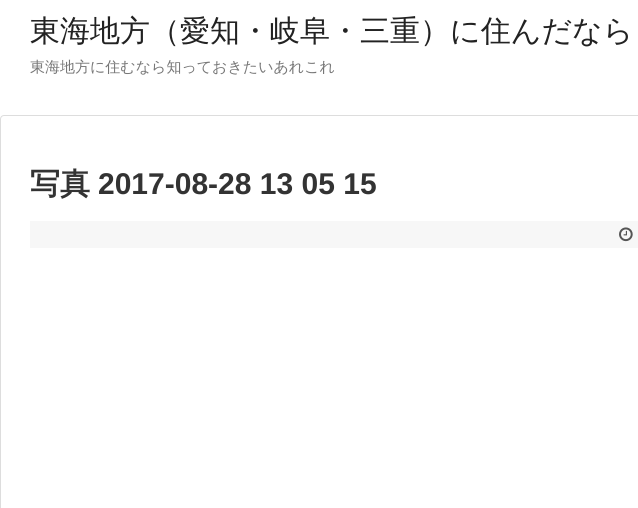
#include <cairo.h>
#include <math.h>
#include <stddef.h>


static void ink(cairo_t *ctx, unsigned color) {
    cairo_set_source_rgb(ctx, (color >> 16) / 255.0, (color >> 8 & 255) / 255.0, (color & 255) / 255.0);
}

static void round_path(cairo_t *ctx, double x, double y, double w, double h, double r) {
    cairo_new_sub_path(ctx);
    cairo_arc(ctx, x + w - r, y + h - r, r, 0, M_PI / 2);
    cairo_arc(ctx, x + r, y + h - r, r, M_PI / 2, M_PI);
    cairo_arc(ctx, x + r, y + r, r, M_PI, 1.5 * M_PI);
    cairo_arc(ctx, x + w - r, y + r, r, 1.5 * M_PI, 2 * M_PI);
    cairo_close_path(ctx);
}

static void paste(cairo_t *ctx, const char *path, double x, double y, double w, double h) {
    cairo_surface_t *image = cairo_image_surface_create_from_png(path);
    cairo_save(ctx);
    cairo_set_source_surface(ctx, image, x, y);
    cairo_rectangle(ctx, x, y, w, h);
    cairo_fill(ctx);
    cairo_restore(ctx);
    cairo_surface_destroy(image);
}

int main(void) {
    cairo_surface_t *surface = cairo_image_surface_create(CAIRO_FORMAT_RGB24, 638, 508);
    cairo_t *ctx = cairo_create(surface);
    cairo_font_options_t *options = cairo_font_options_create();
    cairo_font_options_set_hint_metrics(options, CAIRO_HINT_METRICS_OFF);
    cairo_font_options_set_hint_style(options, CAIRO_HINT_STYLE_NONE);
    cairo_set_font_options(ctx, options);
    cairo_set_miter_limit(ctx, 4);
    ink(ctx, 0xFFFFFF);
    cairo_paint(ctx);
    cairo_select_font_face(ctx, "WenQuanYi Zen Hei Medium", CAIRO_FONT_SLANT_NORMAL, CAIRO_FONT_WEIGHT_NORMAL);
    cairo_set_font_size(ctx, 30);
    ink(ctx, 0x222222);
    cairo_move_to(ctx, 30, 41);
    cairo_show_text(ctx, "東海地方（愛知・岐阜・三重）に住んだなら");
    cairo_set_font_size(ctx, 15);
    ink(ctx, 0x777777);
    cairo_move_to(ctx, 30, 72);
    cairo_show_text(ctx, "東海地方に住むなら知っておきたいあれこれ");
    round_path(ctx, 0.5, 115.5, 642, 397, 3.5);
    ink(ctx, 0xDDDDDD);
    cairo_set_line_width(ctx, 1);
    cairo_stroke(ctx);
    cairo_select_font_face(ctx, "WenQuanYi Zen Hei", CAIRO_FONT_SLANT_NORMAL, CAIRO_FONT_WEIGHT_BOLD);
    cairo_set_font_size(ctx, 30);
    ink(ctx, 0x333333);
    cairo_move_to(ctx, 30, 194);
    cairo_show_text(ctx, "写真");
    cairo_select_font_face(ctx, "Liberation Sans", CAIRO_FONT_SLANT_NORMAL, CAIRO_FONT_WEIGHT_BOLD);
    cairo_move_to(ctx, 98, 194);
    cairo_show_text(ctx, "2017-08-28 13 05 15");
    ink(ctx, 0xF7F7F7);
    cairo_rectangle(ctx, 30, 221, 608, 27);
    cairo_fill(ctx);
    paste(ctx, "media/1.png", 619, 227, 14, 15);
    cairo_surface_write_to_png(surface, "image.png");
    cairo_font_options_destroy(options);
    cairo_destroy(ctx);
    cairo_surface_destroy(surface);
    return 0;
}
